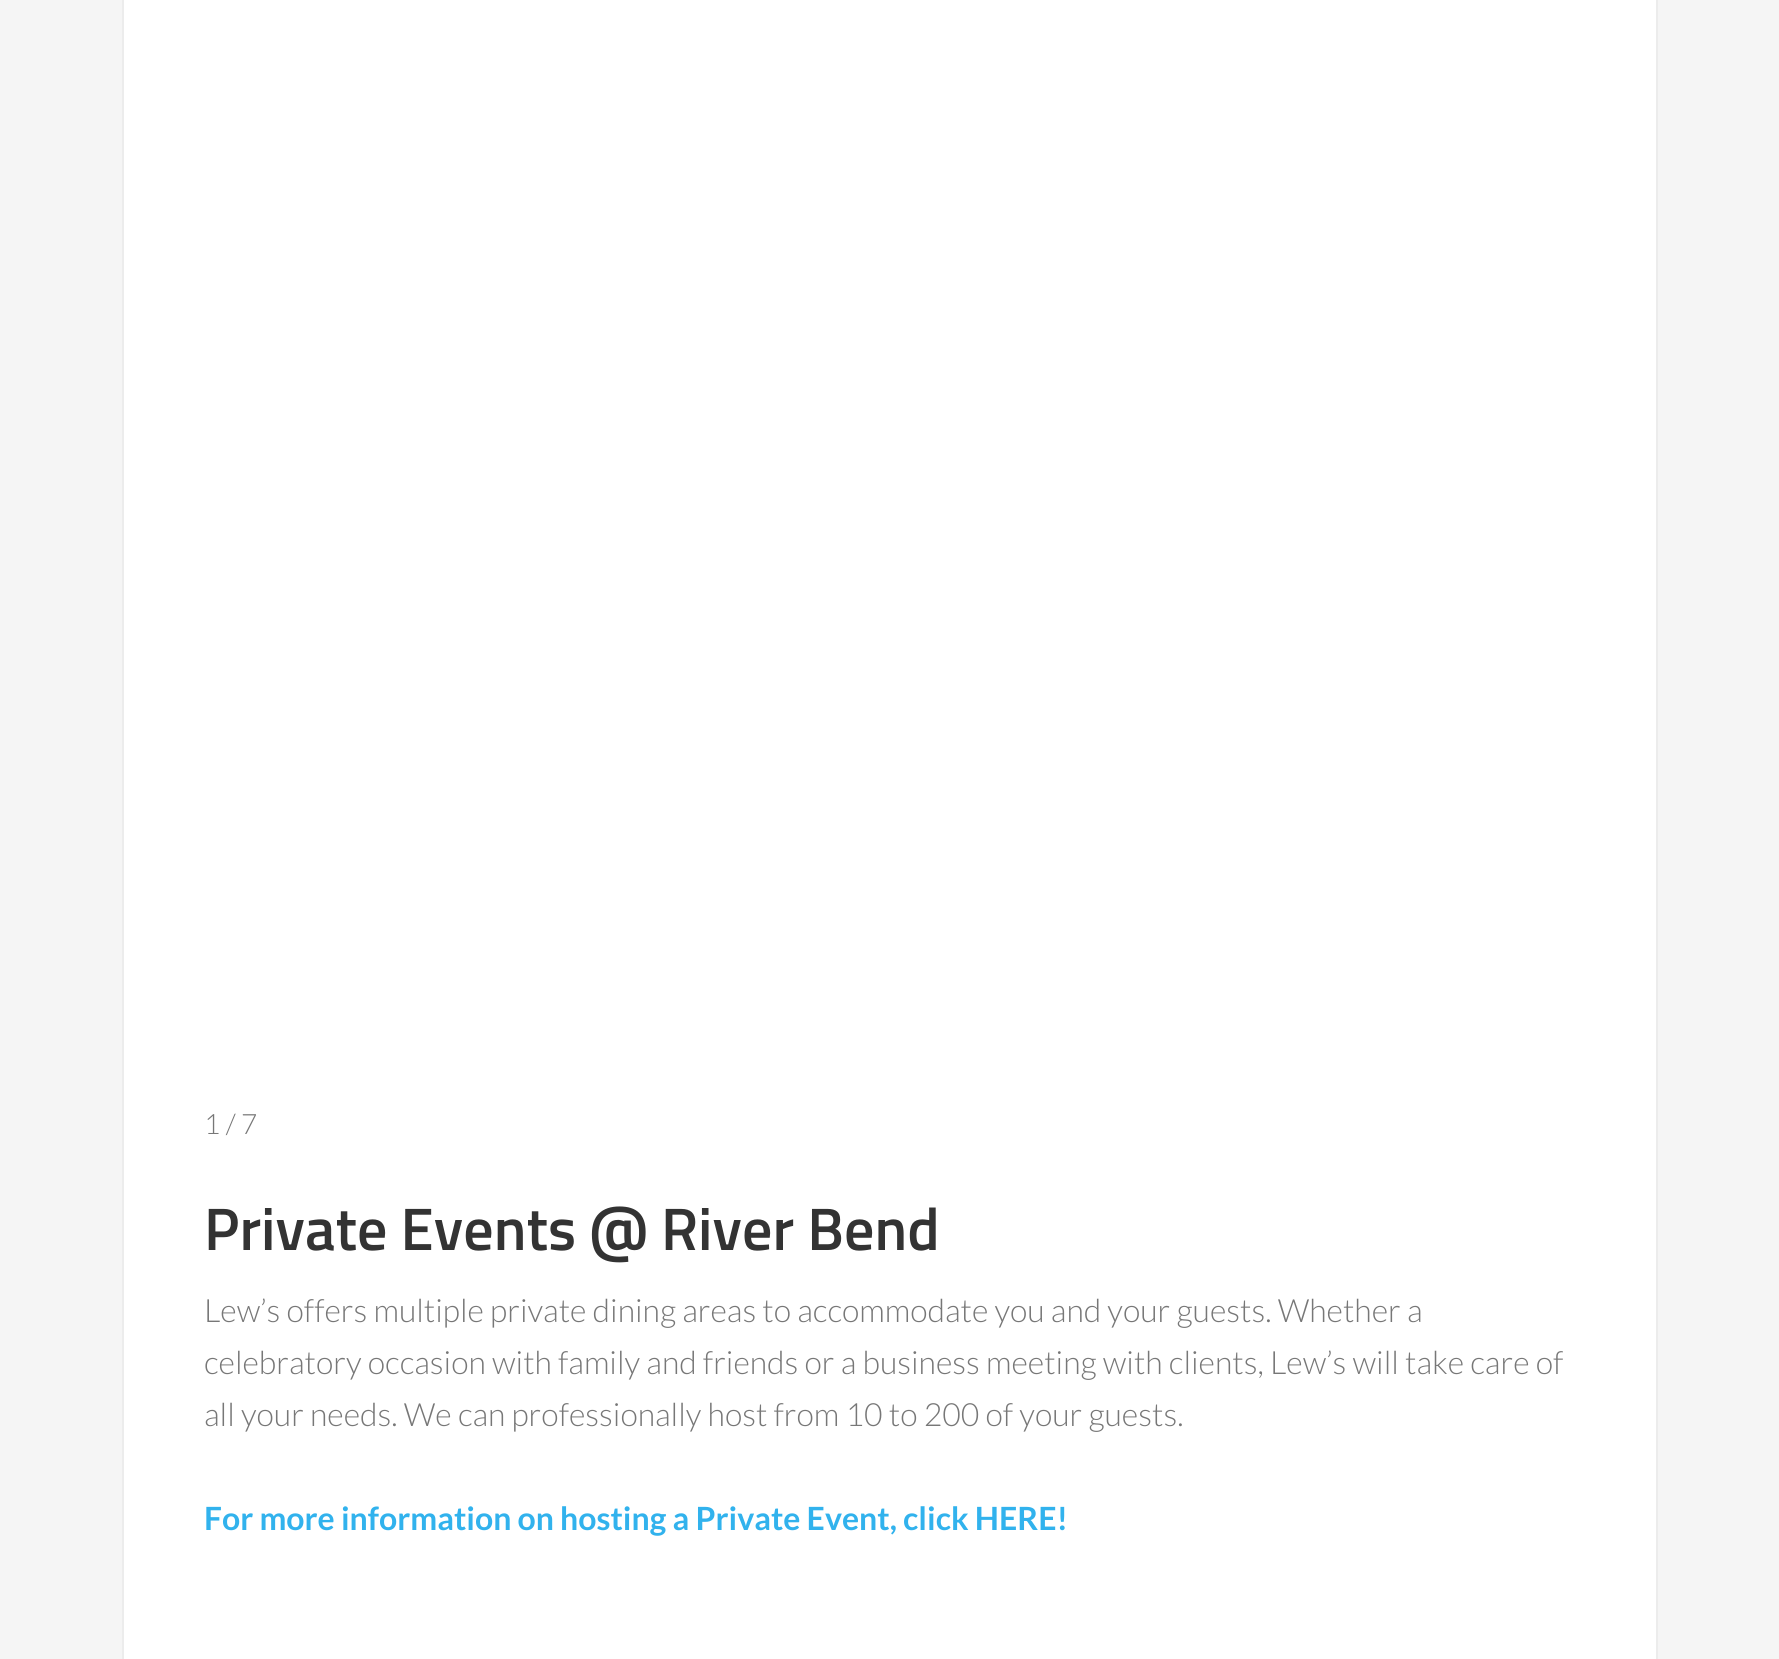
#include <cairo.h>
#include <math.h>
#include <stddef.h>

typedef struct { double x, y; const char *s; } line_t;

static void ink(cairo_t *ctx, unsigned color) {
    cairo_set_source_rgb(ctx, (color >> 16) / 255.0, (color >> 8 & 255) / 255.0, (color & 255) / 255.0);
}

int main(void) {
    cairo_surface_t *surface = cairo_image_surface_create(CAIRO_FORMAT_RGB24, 1779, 1659);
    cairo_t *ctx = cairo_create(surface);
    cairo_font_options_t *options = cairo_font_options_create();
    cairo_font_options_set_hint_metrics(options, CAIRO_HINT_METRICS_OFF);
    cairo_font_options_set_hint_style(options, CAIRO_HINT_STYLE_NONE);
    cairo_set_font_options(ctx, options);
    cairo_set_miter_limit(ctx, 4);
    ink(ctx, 0xF5F5F5);
    cairo_paint(ctx);
    ink(ctx, 0xFFFFFF);
    cairo_rectangle(ctx, 123, -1, 1534, 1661);
    cairo_fill_preserve(ctx);
    ink(ctx, 0xECECEC);
    cairo_stroke(ctx);
    cairo_select_font_face(ctx, "Lato Light", CAIRO_FONT_SLANT_NORMAL, CAIRO_FONT_WEIGHT_NORMAL);
    cairo_set_font_size(ctx, 28);
    ink(ctx, 0x777777);
    cairo_move_to(ctx, 204, 1134);
    cairo_show_text(ctx, "1 / 7");
    cairo_select_font_face(ctx, "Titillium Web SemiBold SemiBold", CAIRO_FONT_SLANT_NORMAL, CAIRO_FONT_WEIGHT_NORMAL);
    cairo_set_font_size(ctx, 60);
    ink(ctx, 0x333333);
    cairo_move_to(ctx, 204, 1250);
    cairo_show_text(ctx, "Private Events @ River Bend");
    cairo_select_font_face(ctx, "Lato Light", CAIRO_FONT_SLANT_NORMAL, CAIRO_FONT_WEIGHT_NORMAL);
    cairo_set_font_size(ctx, 32);
    ink(ctx, 0x777777);
    {
        static const line_t items[] = {
            {204, 1322, "Lew’s offers multiple private dining areas to accommodate you and your guests. Whether a"},
            {204, 1374, "celebratory occasion with family and friends or a business meeting with clients, Lew’s will take care of"},
            {204, 1426, "all your needs. We can professionally host from 10 to 200 of your guests."},
        };
        for (size_t i = 0; i < sizeof items / sizeof *items; i++) {
            cairo_move_to(ctx, items[i].x, items[i].y);
            cairo_show_text(ctx, items[i].s);
        }
    }
    cairo_select_font_face(ctx, "Lato", CAIRO_FONT_SLANT_NORMAL, CAIRO_FONT_WEIGHT_BOLD);
    ink(ctx, 0x31B2ED);
    cairo_move_to(ctx, 204, 1530);
    cairo_show_text(ctx, "For more information on hosting a Private Event, click HERE!");
    cairo_surface_write_to_png(surface, "image.png");
    cairo_font_options_destroy(options);
    cairo_destroy(ctx);
    cairo_surface_destroy(surface);
    return 0;
}
